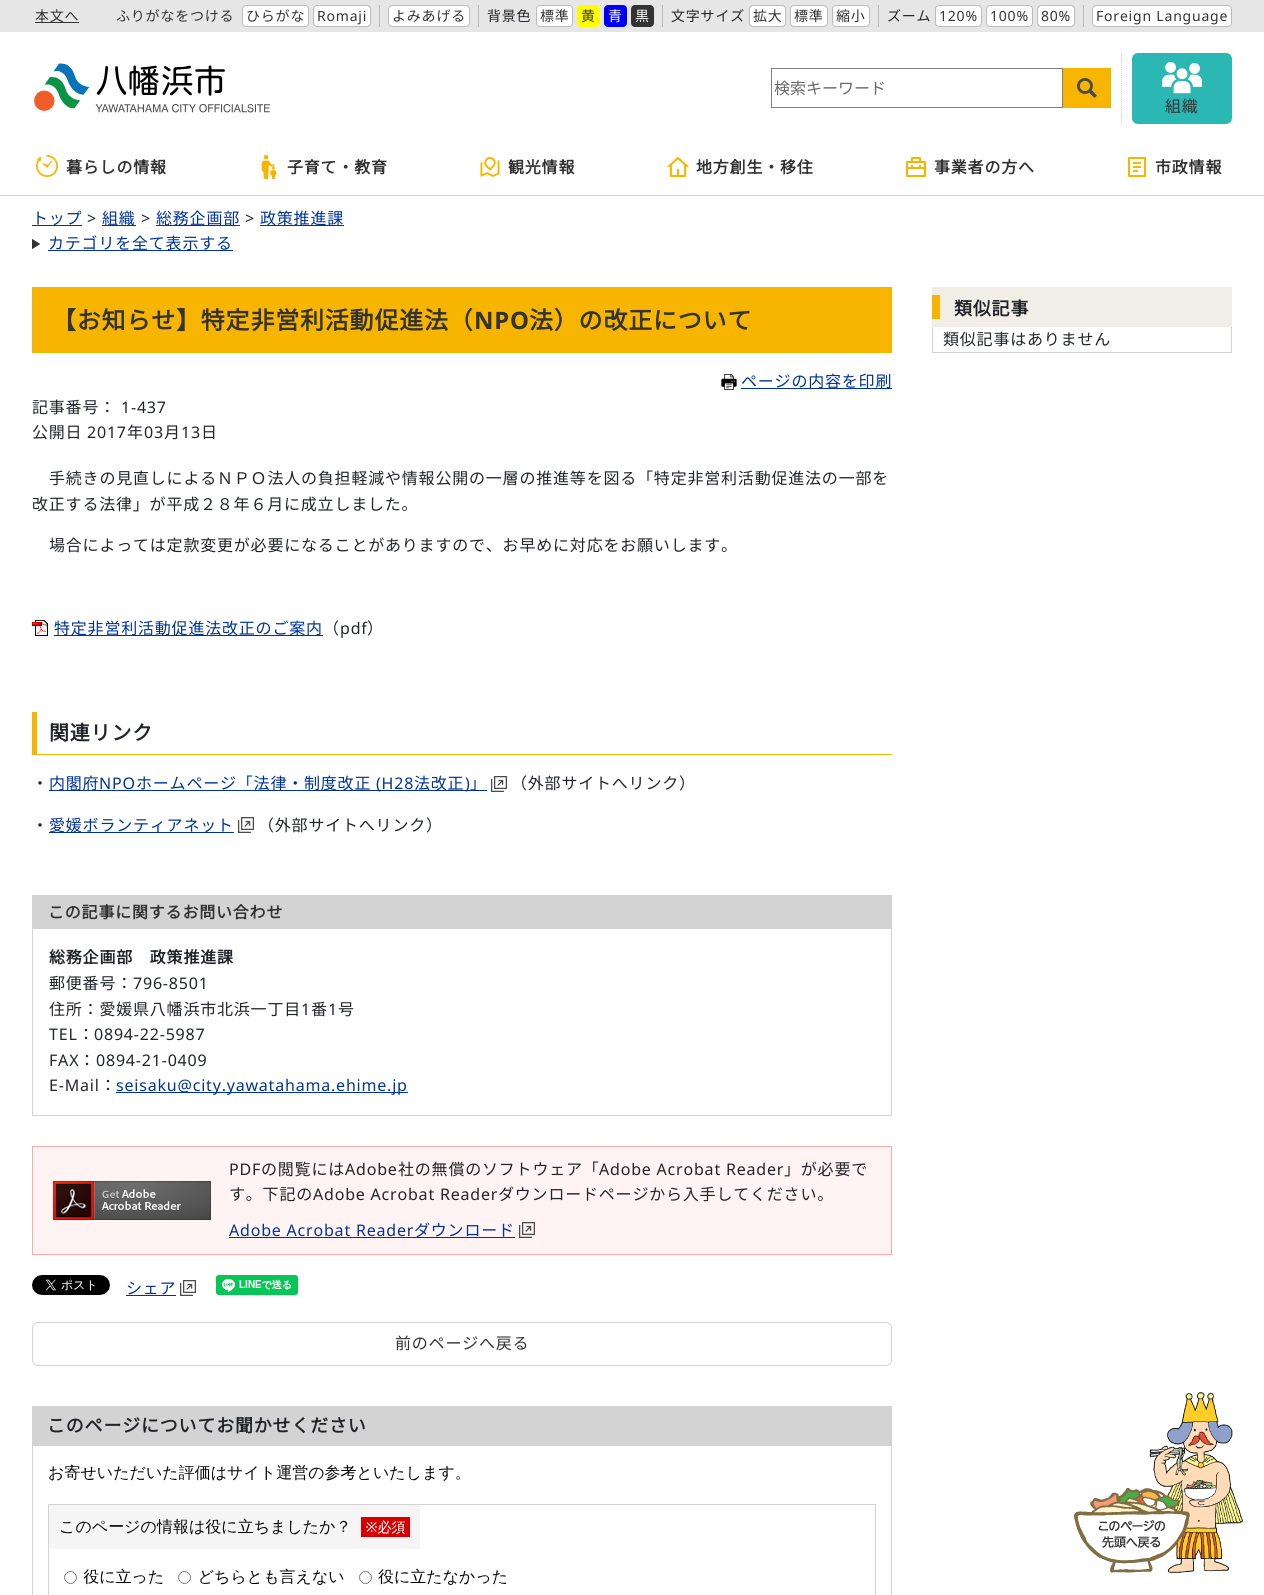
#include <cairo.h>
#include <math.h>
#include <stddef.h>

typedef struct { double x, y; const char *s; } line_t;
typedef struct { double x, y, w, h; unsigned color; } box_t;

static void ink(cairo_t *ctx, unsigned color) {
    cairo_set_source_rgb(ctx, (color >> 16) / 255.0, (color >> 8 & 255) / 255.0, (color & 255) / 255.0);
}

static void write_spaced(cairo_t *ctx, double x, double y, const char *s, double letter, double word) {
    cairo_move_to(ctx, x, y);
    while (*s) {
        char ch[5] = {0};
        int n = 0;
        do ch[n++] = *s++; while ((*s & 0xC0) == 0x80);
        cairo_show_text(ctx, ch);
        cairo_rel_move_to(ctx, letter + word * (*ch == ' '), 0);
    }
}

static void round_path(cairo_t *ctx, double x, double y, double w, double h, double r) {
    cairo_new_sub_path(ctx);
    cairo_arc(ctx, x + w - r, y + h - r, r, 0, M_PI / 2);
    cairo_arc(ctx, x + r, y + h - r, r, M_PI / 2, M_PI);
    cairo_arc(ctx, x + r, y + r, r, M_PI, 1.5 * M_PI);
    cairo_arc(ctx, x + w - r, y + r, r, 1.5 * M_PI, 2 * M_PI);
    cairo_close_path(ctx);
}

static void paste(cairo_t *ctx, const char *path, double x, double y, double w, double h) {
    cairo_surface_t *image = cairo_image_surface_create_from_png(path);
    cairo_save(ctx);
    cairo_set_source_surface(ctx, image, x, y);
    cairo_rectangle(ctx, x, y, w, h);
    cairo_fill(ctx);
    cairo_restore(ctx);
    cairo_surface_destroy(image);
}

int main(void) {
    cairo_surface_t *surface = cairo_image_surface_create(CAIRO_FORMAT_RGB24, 1264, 1595);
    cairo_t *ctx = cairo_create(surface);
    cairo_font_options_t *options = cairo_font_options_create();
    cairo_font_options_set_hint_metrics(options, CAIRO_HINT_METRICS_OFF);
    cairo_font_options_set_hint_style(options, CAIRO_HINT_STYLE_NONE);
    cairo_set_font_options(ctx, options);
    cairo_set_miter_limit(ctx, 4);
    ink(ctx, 0xFFFFFF);
    cairo_paint(ctx);
    ink(ctx, 0xE6E6E6);
    cairo_rectangle(ctx, 0, 0, 1264, 32);
    cairo_fill(ctx);
    ink(ctx, 0x333333);
    cairo_rectangle(ctx, 35, 22, 44, 1);
    cairo_fill(ctx);
    cairo_select_font_face(ctx, "Noto Sans JP Thin", CAIRO_FONT_SLANT_NORMAL, CAIRO_FONT_WEIGHT_NORMAL);
    cairo_set_font_size(ctx, 14);
    write_spaced(ctx, 35, 21, "本文へ", 0.8, 0);
    write_spaced(ctx, 116, 21, "ふりがなをつける", 0.8, 0);
    ink(ctx, 0xFFFFFF);
    round_path(ctx, 242.5, 5.5, 66, 21, 3.5);
    cairo_fill_preserve(ctx);
    ink(ctx, 0xBBBBBB);
    cairo_set_line_width(ctx, 1);
    cairo_stroke(ctx);
    ink(ctx, 0x333333);
    write_spaced(ctx, 246, 21, "ひらがな", 0.8, 0);
    ink(ctx, 0xFFFFFF);
    round_path(ctx, 313.5, 5.5, 57, 21, 3.5);
    cairo_fill_preserve(ctx);
    ink(ctx, 0xBBBBBB);
    cairo_stroke(ctx);
    cairo_select_font_face(ctx, "Noto Sans", CAIRO_FONT_SLANT_NORMAL, CAIRO_FONT_WEIGHT_NORMAL);
    ink(ctx, 0x333333);
    write_spaced(ctx, 317, 21, "Romaji", 0.8, 0);
    ink(ctx, 0xBBBBBB);
    cairo_rectangle(ctx, 379, 5, 1, 22);
    cairo_fill(ctx);
    ink(ctx, 0xFFFFFF);
    round_path(ctx, 388.5, 5.5, 81, 21, 3.5);
    cairo_fill_preserve(ctx);
    ink(ctx, 0xBBBBBB);
    cairo_stroke(ctx);
    cairo_select_font_face(ctx, "Noto Sans JP Thin", CAIRO_FONT_SLANT_NORMAL, CAIRO_FONT_WEIGHT_NORMAL);
    ink(ctx, 0x333333);
    write_spaced(ctx, 392, 21, "よみあげる", 0.8, 0);
    ink(ctx, 0xBBBBBB);
    cairo_rectangle(ctx, 478, 5, 1, 22);
    cairo_fill(ctx);
    ink(ctx, 0x212529);
    write_spaced(ctx, 487, 21, "背景色", 0.8, 0);
    ink(ctx, 0xFFFFFF);
    round_path(ctx, 536.5, 5.5, 36, 21, 3.5);
    cairo_fill_preserve(ctx);
    ink(ctx, 0xBBBBBB);
    cairo_stroke(ctx);
    ink(ctx, 0x333333);
    write_spaced(ctx, 540, 21, "標準", 0.8, 0);
    ink(ctx, 0xFFFF00);
    round_path(ctx, 577, 5, 23, 22, 4);
    cairo_fill(ctx);
    ink(ctx, 0x333333);
    write_spaced(ctx, 581, 21, "黄", 0.8, 0);
    ink(ctx, 0x0000FF);
    round_path(ctx, 604, 5, 23, 22, 4);
    cairo_fill(ctx);
    ink(ctx, 0xFFFFFF);
    write_spaced(ctx, 608, 21, "青", 0.8, 0);
    ink(ctx, 0x333333);
    round_path(ctx, 631, 5, 23, 22, 4);
    cairo_fill(ctx);
    ink(ctx, 0xFFFFFF);
    write_spaced(ctx, 635, 21, "黒", 0.8, 0);
    ink(ctx, 0xBBBBBB);
    cairo_rectangle(ctx, 662, 5, 1, 22);
    cairo_fill(ctx);
    ink(ctx, 0x212529);
    write_spaced(ctx, 671, 21, "文字サイズ", 0.8, 0);
    ink(ctx, 0xFFFFFF);
    round_path(ctx, 749.5, 5.5, 36, 21, 3.5);
    cairo_fill_preserve(ctx);
    ink(ctx, 0xBBBBBB);
    cairo_stroke(ctx);
    ink(ctx, 0x333333);
    write_spaced(ctx, 753, 21, "拡大", 0.8, 0);
    ink(ctx, 0xFFFFFF);
    round_path(ctx, 790.5, 5.5, 37, 21, 3.5);
    cairo_fill_preserve(ctx);
    ink(ctx, 0xBBBBBB);
    cairo_stroke(ctx);
    ink(ctx, 0x333333);
    write_spaced(ctx, 794, 21, "標準", 0.8, 0);
    ink(ctx, 0xFFFFFF);
    round_path(ctx, 832.5, 5.5, 37, 21, 3.5);
    cairo_fill_preserve(ctx);
    ink(ctx, 0xBBBBBB);
    cairo_stroke(ctx);
    ink(ctx, 0x333333);
    write_spaced(ctx, 836, 21, "縮小", 0.8, 0);
    ink(ctx, 0xBBBBBB);
    cairo_rectangle(ctx, 878, 5, 1, 22);
    cairo_fill(ctx);
    ink(ctx, 0x212529);
    write_spaced(ctx, 887, 21, "ズーム", 0.8, 0);
    ink(ctx, 0xFFFFFF);
    round_path(ctx, 935.5, 5.5, 46, 21, 3.5);
    cairo_fill_preserve(ctx);
    ink(ctx, 0xBBBBBB);
    cairo_stroke(ctx);
    cairo_select_font_face(ctx, "Noto Sans", CAIRO_FONT_SLANT_NORMAL, CAIRO_FONT_WEIGHT_NORMAL);
    ink(ctx, 0x333333);
    write_spaced(ctx, 939, 21, "120%", 0.8, 0);
    ink(ctx, 0xFFFFFF);
    round_path(ctx, 986.5, 5.5, 46, 21, 3.5);
    cairo_fill_preserve(ctx);
    ink(ctx, 0xBBBBBB);
    cairo_stroke(ctx);
    ink(ctx, 0x333333);
    write_spaced(ctx, 990, 21, "100%", 0.8, 0);
    ink(ctx, 0xFFFFFF);
    round_path(ctx, 1037.5, 5.5, 37, 21, 3.5);
    cairo_fill_preserve(ctx);
    ink(ctx, 0xBBBBBB);
    cairo_stroke(ctx);
    ink(ctx, 0x333333);
    write_spaced(ctx, 1041, 21, "80%", 0.8, 0);
    ink(ctx, 0xBBBBBB);
    cairo_rectangle(ctx, 1083, 5, 1, 22);
    cairo_fill(ctx);
    ink(ctx, 0xFFFFFF);
    round_path(ctx, 1092.5, 5.5, 139, 21, 3.5);
    cairo_fill_preserve(ctx);
    ink(ctx, 0xBBBBBB);
    cairo_stroke(ctx);
    ink(ctx, 0x333333);
    write_spaced(ctx, 1096, 21, "Foreign Language", 0.8, 0);
    paste(ctx, "media/1.png", 34, 63, 236, 50);
    cairo_rectangle(ctx, 771.5, 68.5, 291, 39);
    ink(ctx, 0x808080);
    cairo_stroke(ctx);
    cairo_select_font_face(ctx, "Noto Sans JP Thin", CAIRO_FONT_SLANT_NORMAL, CAIRO_FONT_WEIGHT_NORMAL);
    cairo_set_font_size(ctx, 16);
    ink(ctx, 0x696969);
    cairo_move_to(ctx, 774, 94);
    cairo_show_text(ctx, "検索キーワード");
    ink(ctx, 0xF8B500);
    cairo_rectangle(ctx, 1063, 68, 48, 40);
    cairo_fill(ctx);
    paste(ctx, "media/2.png", 1077, 78, 20, 20);
    cairo_new_path(ctx);
    cairo_move_to(ctx, 1121.5, 53);
    cairo_line_to(ctx, 1121.5, 124);
    ink(ctx, 0xD3D3D3);
    cairo_set_dash(ctx, (double[]){1, 1}, 2, 0);
    cairo_stroke(ctx);
    ink(ctx, 0x2BB7B3);
    round_path(ctx, 1132, 53, 100, 71, 6);
    cairo_fill(ctx);
    paste(ctx, "media/3.png", 1162, 62, 40, 32);
    ink(ctx, 0x333333);
    write_spaced(ctx, 1165, 112, "組織", 0.8, 0);
    ink(ctx, 0xD3D3D3);
    cairo_rectangle(ctx, 0, 195, 1264, 1);
    cairo_fill(ctx);
    paste(ctx, "media/4.png", 36, 155, 22, 22);
    cairo_select_font_face(ctx, "Noto Sans JP", CAIRO_FONT_SLANT_NORMAL, CAIRO_FONT_WEIGHT_BOLD);
    ink(ctx, 0x333333);
    write_spaced(ctx, 66, 173, "暮らしの情報", 0.8, 0);
    paste(ctx, "media/5.png", 261, 155, 16, 24);
    write_spaced(ctx, 287, 173, "子育て・教育", 0.8, 0);
    paste(ctx, "media/6.png", 480, 157, 20, 20);
    write_spaced(ctx, 508, 173, "観光情報", 0.8, 0);
    paste(ctx, "media/7.png", 667, 157, 22, 20);
    write_spaced(ctx, 696, 173, "地方創生・移住", 0.8, 0);
    paste(ctx, "media/8.png", 906, 157, 20, 20);
    write_spaced(ctx, 934, 173, "事業者の方へ", 0.8, 0);
    paste(ctx, "media/9.png", 1128, 157, 18, 20);
    write_spaced(ctx, 1155, 173, "市政情報", 0.8, 0);
    ink(ctx, 0x003399);
    cairo_rectangle(ctx, 32, 225, 50, 1);
    cairo_fill(ctx);
    cairo_select_font_face(ctx, "Noto Sans JP Thin", CAIRO_FONT_SLANT_NORMAL, CAIRO_FONT_WEIGHT_NORMAL);
    write_spaced(ctx, 32, 224, "トップ", 0.8, 0);
    cairo_select_font_face(ctx, "Noto Sans", CAIRO_FONT_SLANT_NORMAL, CAIRO_FONT_WEIGHT_NORMAL);
    ink(ctx, 0x212529);
    write_spaced(ctx, 87, 224, ">", 0.8, 0);
    ink(ctx, 0x003399);
    cairo_rectangle(ctx, 102, 225, 34, 1);
    cairo_fill(ctx);
    cairo_select_font_face(ctx, "Noto Sans JP Thin", CAIRO_FONT_SLANT_NORMAL, CAIRO_FONT_WEIGHT_NORMAL);
    write_spaced(ctx, 102, 224, "組織", 0.8, 0);
    cairo_select_font_face(ctx, "Noto Sans", CAIRO_FONT_SLANT_NORMAL, CAIRO_FONT_WEIGHT_NORMAL);
    ink(ctx, 0x212529);
    write_spaced(ctx, 141, 224, ">", 0.8, 0);
    ink(ctx, 0x003399);
    cairo_rectangle(ctx, 156, 225, 84, 1);
    cairo_fill(ctx);
    cairo_select_font_face(ctx, "Noto Sans JP Thin", CAIRO_FONT_SLANT_NORMAL, CAIRO_FONT_WEIGHT_NORMAL);
    write_spaced(ctx, 156, 224, "総務企画部", 0.8, 0);
    cairo_select_font_face(ctx, "Noto Sans", CAIRO_FONT_SLANT_NORMAL, CAIRO_FONT_WEIGHT_NORMAL);
    ink(ctx, 0x212529);
    write_spaced(ctx, 245, 224, ">", 0.8, 0);
    ink(ctx, 0x003399);
    cairo_rectangle(ctx, 260, 225, 84, 1);
    cairo_fill(ctx);
    cairo_select_font_face(ctx, "Noto Sans JP Thin", CAIRO_FONT_SLANT_NORMAL, CAIRO_FONT_WEIGHT_NORMAL);
    write_spaced(ctx, 260, 224, "政策推進課", 0.8, 0);
    paste(ctx, "media/10.png", 32, 239, 8, 10);
    cairo_rectangle(ctx, 48, 250, 185, 1);
    cairo_fill(ctx);
    write_spaced(ctx, 48, 249, "カテゴリを全て表示する", 0.8, 0);
    ink(ctx, 0xF8B500);
    cairo_rectangle(ctx, 32, 287, 860, 66);
    cairo_fill(ctx);
    cairo_select_font_face(ctx, "Noto Sans JP", CAIRO_FONT_SLANT_NORMAL, CAIRO_FONT_WEIGHT_BOLD);
    cairo_set_font_size(ctx, 24);
    ink(ctx, 0x333333);
    write_spaced(ctx, 52, 329, "【お知らせ】特定非営利活動促進法（", 0.8, 0);
    cairo_select_font_face(ctx, "Noto Sans", CAIRO_FONT_SLANT_NORMAL, CAIRO_FONT_WEIGHT_BOLD);
    write_spaced(ctx, 474, 329, "NPO", 0.8, 0);
    cairo_select_font_face(ctx, "Noto Sans JP", CAIRO_FONT_SLANT_NORMAL, CAIRO_FONT_WEIGHT_BOLD);
    write_spaced(ctx, 529, 329, "法）の改正について", 0.8, 0);
    paste(ctx, "media/11.png", 721, 374, 16, 16);
    ink(ctx, 0x003399);
    cairo_rectangle(ctx, 741, 388, 151, 1);
    cairo_fill(ctx);
    cairo_select_font_face(ctx, "Noto Sans JP Thin", CAIRO_FONT_SLANT_NORMAL, CAIRO_FONT_WEIGHT_NORMAL);
    cairo_set_font_size(ctx, 16);
    write_spaced(ctx, 741, 387, "ページの内容を印刷", 0.8, 0);
    ink(ctx, 0x212529);
    write_spaced(ctx, 32, 413, "記事番号：", 0.8, 0);
    cairo_select_font_face(ctx, "Noto Sans", CAIRO_FONT_SLANT_NORMAL, CAIRO_FONT_WEIGHT_NORMAL);
    write_spaced(ctx, 121, 413, "1-437", 0.8, 0);
    cairo_select_font_face(ctx, "Noto Sans JP Thin", CAIRO_FONT_SLANT_NORMAL, CAIRO_FONT_WEIGHT_NORMAL);
    write_spaced(ctx, 32, 438, "公開日", 0.8, 0);
    cairo_select_font_face(ctx, "Noto Sans", CAIRO_FONT_SLANT_NORMAL, CAIRO_FONT_WEIGHT_NORMAL);
    write_spaced(ctx, 87, 438, "2017", 0.8, 0);
    cairo_select_font_face(ctx, "Noto Sans JP Thin", CAIRO_FONT_SLANT_NORMAL, CAIRO_FONT_WEIGHT_NORMAL);
    write_spaced(ctx, 127, 438, "年", 0.8, 0);
    cairo_select_font_face(ctx, "Noto Sans", CAIRO_FONT_SLANT_NORMAL, CAIRO_FONT_WEIGHT_NORMAL);
    write_spaced(ctx, 144, 438, "03", 0.8, 0);
    cairo_select_font_face(ctx, "Noto Sans JP Thin", CAIRO_FONT_SLANT_NORMAL, CAIRO_FONT_WEIGHT_NORMAL);
    write_spaced(ctx, 164, 438, "月", 0.8, 0);
    cairo_select_font_face(ctx, "Noto Sans", CAIRO_FONT_SLANT_NORMAL, CAIRO_FONT_WEIGHT_NORMAL);
    write_spaced(ctx, 181, 438, "13", 0.8, 0);
    cairo_select_font_face(ctx, "Noto Sans JP Thin", CAIRO_FONT_SLANT_NORMAL, CAIRO_FONT_WEIGHT_NORMAL);
    {
        static const line_t items[] = {
            {201, 438, "日"},
            {49, 484, "手続きの見直しによるＮＰＯ法人の負担軽減や情報公開の一層の推進等を図る「特定非営利活動促進法の一部を"},
            {32, 510, "改正する法律」が平成２８年６月に成立しました。"},
            {49, 551, "場合によっては定款変更が必要になることがありますので、お早めに対応をお願いします。"},
        };
        for (size_t i = 0; i < sizeof items / sizeof *items; i++) {
            write_spaced(ctx, items[i].x, items[i].y, items[i].s, 0.8, 0);
        }
    }
    paste(ctx, "media/12.png", 32, 620, 16, 16);
    ink(ctx, 0x003399);
    cairo_rectangle(ctx, 54, 635, 269, 1);
    cairo_fill(ctx);
    write_spaced(ctx, 54, 634, "特定非営利活動促進法改正のご案内", 0.8, 0);
    ink(ctx, 0x212529);
    write_spaced(ctx, 323, 634, "（", 0.8, 0);
    cairo_select_font_face(ctx, "Noto Sans", CAIRO_FONT_SLANT_NORMAL, CAIRO_FONT_WEIGHT_NORMAL);
    write_spaced(ctx, 340, 634, "pdf", 0.8, 0);
    cairo_select_font_face(ctx, "Noto Sans JP Thin", CAIRO_FONT_SLANT_NORMAL, CAIRO_FONT_WEIGHT_NORMAL);
    write_spaced(ctx, 367, 634, "）", 0.8, 0);
    ink(ctx, 0xF8B500);
    cairo_rectangle(ctx, 32, 754, 860, 1);
    cairo_fill(ctx);
    cairo_rectangle(ctx, 32, 712, 5, 43);
    cairo_fill(ctx);
    cairo_select_font_face(ctx, "Noto Sans JP", CAIRO_FONT_SLANT_NORMAL, CAIRO_FONT_WEIGHT_BOLD);
    cairo_set_font_size(ctx, 20);
    ink(ctx, 0x212529);
    write_spaced(ctx, 49, 740, "関連リンク", 0.8, 0);
    cairo_select_font_face(ctx, "Noto Sans JP Thin", CAIRO_FONT_SLANT_NORMAL, CAIRO_FONT_WEIGHT_NORMAL);
    cairo_set_font_size(ctx, 16);
    write_spaced(ctx, 32, 789, "・", 0.8, 0);
    ink(ctx, 0x003399);
    cairo_rectangle(ctx, 49, 790, 438, 1);
    cairo_fill(ctx);
    write_spaced(ctx, 49, 789, "内閣府", 0.8, 0);
    cairo_select_font_face(ctx, "Noto Sans", CAIRO_FONT_SLANT_NORMAL, CAIRO_FONT_WEIGHT_NORMAL);
    write_spaced(ctx, 99, 789, "NPO", 0.8, 0);
    cairo_select_font_face(ctx, "Noto Sans JP Thin", CAIRO_FONT_SLANT_NORMAL, CAIRO_FONT_WEIGHT_NORMAL);
    write_spaced(ctx, 136, 789, "ホームページ「法律・制度改正", 0.8, 0);
    cairo_select_font_face(ctx, "Noto Sans", CAIRO_FONT_SLANT_NORMAL, CAIRO_FONT_WEIGHT_NORMAL);
    write_spaced(ctx, 376, 789, "(H28", 0.8, 0);
    cairo_select_font_face(ctx, "Noto Sans JP Thin", CAIRO_FONT_SLANT_NORMAL, CAIRO_FONT_WEIGHT_NORMAL);
    write_spaced(ctx, 414, 789, "法改正", 0.8, 0);
    cairo_select_font_face(ctx, "Noto Sans", CAIRO_FONT_SLANT_NORMAL, CAIRO_FONT_WEIGHT_NORMAL);
    write_spaced(ctx, 465, 789, ")", 0.8, 0);
    cairo_select_font_face(ctx, "Noto Sans JP Thin", CAIRO_FONT_SLANT_NORMAL, CAIRO_FONT_WEIGHT_NORMAL);
    write_spaced(ctx, 470, 789, "」", 0.8, 0);
    paste(ctx, "media/13.png", 491, 776, 16, 16);
    ink(ctx, 0x212529);
    write_spaced(ctx, 511, 789, "（外部サイトへリンク）", 0.8, 0);
    write_spaced(ctx, 32, 831, "・", 0.8, 0);
    ink(ctx, 0x003399);
    cairo_rectangle(ctx, 49, 832, 185, 1);
    cairo_fill(ctx);
    write_spaced(ctx, 49, 831, "愛媛ボランティアネット", 0.8, 0);
    paste(ctx, "media/13.png", 238, 817, 16, 16);
    ink(ctx, 0x212529);
    write_spaced(ctx, 258, 831, "（外部サイトへリンク）", 0.8, 0);
    ink(ctx, 0xD3D3D3);
    cairo_rectangle(ctx, 32, 895, 860, 34);
    cairo_fill(ctx);
    cairo_select_font_face(ctx, "Noto Sans JP", CAIRO_FONT_SLANT_NORMAL, CAIRO_FONT_WEIGHT_BOLD);
    ink(ctx, 0x333333);
    write_spaced(ctx, 48, 918, "この記事に関するお問い合わせ", 0.8, 0);
    {
        static const box_t items[] = {
            {891, 929, 1, 187, 0xD3D3D3},
            {32, 1115, 860, 1, 0xD3D3D3},
            {32, 929, 1, 187, 0xD3D3D3},
        };
        for (size_t i = 0; i < sizeof items / sizeof *items; i++) {
            ink(ctx, items[i].color);
            cairo_rectangle(ctx, items[i].x, items[i].y, items[i].w, items[i].h);
            cairo_fill(ctx);
        }
    }
    ink(ctx, 0x212529);
    write_spaced(ctx, 49, 963, "総務企画部　政策推進課", 0.8, 0);
    cairo_select_font_face(ctx, "Noto Sans JP Thin", CAIRO_FONT_SLANT_NORMAL, CAIRO_FONT_WEIGHT_NORMAL);
    write_spaced(ctx, 49, 989, "郵便番号：", 0.8, 0);
    cairo_select_font_face(ctx, "Noto Sans", CAIRO_FONT_SLANT_NORMAL, CAIRO_FONT_WEIGHT_NORMAL);
    write_spaced(ctx, 133, 989, "796-8501", 0.8, 0);
    cairo_select_font_face(ctx, "Noto Sans JP Thin", CAIRO_FONT_SLANT_NORMAL, CAIRO_FONT_WEIGHT_NORMAL);
    write_spaced(ctx, 49, 1015, "住所：愛媛県八幡浜市北浜一丁目", 0.8, 0);
    cairo_select_font_face(ctx, "Noto Sans", CAIRO_FONT_SLANT_NORMAL, CAIRO_FONT_WEIGHT_NORMAL);
    write_spaced(ctx, 301, 1015, "1", 0.8, 0);
    cairo_select_font_face(ctx, "Noto Sans JP Thin", CAIRO_FONT_SLANT_NORMAL, CAIRO_FONT_WEIGHT_NORMAL);
    write_spaced(ctx, 311, 1015, "番", 0.8, 0);
    cairo_select_font_face(ctx, "Noto Sans", CAIRO_FONT_SLANT_NORMAL, CAIRO_FONT_WEIGHT_NORMAL);
    write_spaced(ctx, 328, 1015, "1", 0.8, 0);
    cairo_select_font_face(ctx, "Noto Sans JP Thin", CAIRO_FONT_SLANT_NORMAL, CAIRO_FONT_WEIGHT_NORMAL);
    write_spaced(ctx, 338, 1015, "号", 0.8, 0);
    cairo_select_font_face(ctx, "Noto Sans", CAIRO_FONT_SLANT_NORMAL, CAIRO_FONT_WEIGHT_NORMAL);
    write_spaced(ctx, 49, 1040, "TEL", 0.8, 0);
    cairo_select_font_face(ctx, "Noto Sans JP Thin", CAIRO_FONT_SLANT_NORMAL, CAIRO_FONT_WEIGHT_NORMAL);
    write_spaced(ctx, 78, 1040, "：", 0.8, 0);
    cairo_select_font_face(ctx, "Noto Sans", CAIRO_FONT_SLANT_NORMAL, CAIRO_FONT_WEIGHT_NORMAL);
    write_spaced(ctx, 94, 1040, "0894-22-5987", 0.8, 0);
    write_spaced(ctx, 49, 1066, "FAX", 0.8, 0);
    cairo_select_font_face(ctx, "Noto Sans JP Thin", CAIRO_FONT_SLANT_NORMAL, CAIRO_FONT_WEIGHT_NORMAL);
    write_spaced(ctx, 79, 1066, "：", 0.8, 0);
    cairo_select_font_face(ctx, "Noto Sans", CAIRO_FONT_SLANT_NORMAL, CAIRO_FONT_WEIGHT_NORMAL);
    write_spaced(ctx, 96, 1066, "0894-21-0409", 0.8, 0);
    write_spaced(ctx, 49, 1091, "E-Mail", 0.8, 0);
    cairo_select_font_face(ctx, "Noto Sans JP Thin", CAIRO_FONT_SLANT_NORMAL, CAIRO_FONT_WEIGHT_NORMAL);
    write_spaced(ctx, 100, 1091, "：", 0.8, 0);
    ink(ctx, 0x003399);
    cairo_rectangle(ctx, 116, 1092, 292, 1);
    cairo_fill(ctx);
    cairo_select_font_face(ctx, "Noto Sans", CAIRO_FONT_SLANT_NORMAL, CAIRO_FONT_WEIGHT_NORMAL);
    write_spaced(ctx, 116, 1091, "seisaku@city.yawatahama.ehime.jp", 0.8, 0);
    ink(ctx, 0xFFF3F3);
    cairo_rectangle(ctx, 33, 1147, 858, 107);
    cairo_fill(ctx);
    paste(ctx, "media/14.png", 53, 1181, 158, 39);
    cairo_rectangle(ctx, 32.5, 1146.5, 859, 108);
    ink(ctx, 0xFFAAAA);
    cairo_set_dash(ctx, NULL, 0, 0);
    cairo_stroke(ctx);
    ink(ctx, 0x212529);
    write_spaced(ctx, 229, 1175, "PDF", 0.8, 0);
    cairo_select_font_face(ctx, "Noto Sans JP Thin", CAIRO_FONT_SLANT_NORMAL, CAIRO_FONT_WEIGHT_NORMAL);
    write_spaced(ctx, 261, 1175, "の閲覧には", 0.8, 0);
    cairo_select_font_face(ctx, "Noto Sans", CAIRO_FONT_SLANT_NORMAL, CAIRO_FONT_WEIGHT_NORMAL);
    write_spaced(ctx, 345, 1175, "Adobe", 0.8, 0);
    cairo_select_font_face(ctx, "Noto Sans JP Thin", CAIRO_FONT_SLANT_NORMAL, CAIRO_FONT_WEIGHT_NORMAL);
    write_spaced(ctx, 398, 1175, "社の無償のソフトウェア「", 0.8, 0);
    cairo_select_font_face(ctx, "Noto Sans", CAIRO_FONT_SLANT_NORMAL, CAIRO_FONT_WEIGHT_NORMAL);
    write_spaced(ctx, 599, 1175, "Adobe Acrobat Reader", 0.8, 0);
    cairo_select_font_face(ctx, "Noto Sans JP Thin", CAIRO_FONT_SLANT_NORMAL, CAIRO_FONT_WEIGHT_NORMAL);
    write_spaced(ctx, 784, 1175, "」が必要で", 0.8, 0);
    write_spaced(ctx, 229, 1200, "す。下記の", 0.8, 0);
    cairo_select_font_face(ctx, "Noto Sans", CAIRO_FONT_SLANT_NORMAL, CAIRO_FONT_WEIGHT_NORMAL);
    write_spaced(ctx, 313, 1200, "Adobe Acrobat Reader", 0.8, 0);
    cairo_select_font_face(ctx, "Noto Sans JP Thin", CAIRO_FONT_SLANT_NORMAL, CAIRO_FONT_WEIGHT_NORMAL);
    write_spaced(ctx, 498, 1200, "ダウンロードページから入手してください。", 0.8, 0);
    cairo_select_font_face(ctx, "Noto Sans", CAIRO_FONT_SLANT_NORMAL, CAIRO_FONT_WEIGHT_NORMAL);
    ink(ctx, 0x003399);
    write_spaced(ctx, 229, 1236, "Adobe Acrobat Reader", 0.8, 0);
    cairo_rectangle(ctx, 229, 1237, 286, 1);
    cairo_fill(ctx);
    cairo_select_font_face(ctx, "Noto Sans JP Thin", CAIRO_FONT_SLANT_NORMAL, CAIRO_FONT_WEIGHT_NORMAL);
    write_spaced(ctx, 414, 1236, "ダウンロード", 0.8, 0);
    paste(ctx, "media/15.png", 519, 1222, 16, 16);
    paste(ctx, "media/16.png", 32, 1275, 78, 20);
    write_spaced(ctx, 126, 1294, "シェア", 0.8, 0);
    cairo_rectangle(ctx, 126, 1295, 50, 1);
    cairo_fill(ctx);
    paste(ctx, "media/13.png", 180, 1280, 16, 16);
    paste(ctx, "media/17.png", 216, 1275, 82, 20);
    round_path(ctx, 32.5, 1322.5, 859, 43, 5.5);
    ink(ctx, 0xD3D3D3);
    cairo_stroke(ctx);
    ink(ctx, 0x333333);
    write_spaced(ctx, 395, 1349, "前のページへ戻る", 0.8, 0);
    ink(ctx, 0xD3D3D3);
    cairo_rectangle(ctx, 32, 1406, 860, 39);
    cairo_fill(ctx);
    cairo_select_font_face(ctx, "Noto Sans JP", CAIRO_FONT_SLANT_NORMAL, CAIRO_FONT_WEIGHT_BOLD);
    cairo_set_font_size(ctx, 18);
    ink(ctx, 0x212529);
    write_spaced(ctx, 47, 1432, "このページについてお聞かせください", 0.8, 0);
    cairo_rectangle(ctx, 32.5, 1445.5, 859, 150);
    ink(ctx, 0xD3D3D3);
    cairo_stroke(ctx);
    paste(ctx, "media/18.png", 48, 1464, 828, 131);
    ink(ctx, 0xF1EEE7);
    cairo_rectangle(ctx, 932, 287, 300, 40);
    cairo_fill(ctx);
    ink(ctx, 0xF8B500);
    cairo_rectangle(ctx, 932, 295, 8, 24);
    cairo_fill(ctx);
    ink(ctx, 0x212529);
    write_spaced(ctx, 954, 315, "類似記事", 0.8, 0);
    {
        static const box_t items[] = {
            {1231, 327, 1, 26, 0xD3D3D3},
            {932, 352, 300, 1, 0xD3D3D3},
            {932, 327, 1, 26, 0xD3D3D3},
        };
        for (size_t i = 0; i < sizeof items / sizeof *items; i++) {
            ink(ctx, items[i].color);
            cairo_rectangle(ctx, items[i].x, items[i].y, items[i].w, items[i].h);
            cairo_fill(ctx);
        }
    }
    cairo_select_font_face(ctx, "Noto Sans JP Thin", CAIRO_FONT_SLANT_NORMAL, CAIRO_FONT_WEIGHT_NORMAL);
    cairo_set_font_size(ctx, 16);
    ink(ctx, 0x212529);
    write_spaced(ctx, 943, 345, "類似記事はありません", 0.8, 0);
    paste(ctx, "media/19.png", 1074, 1392, 169, 181);
    cairo_surface_write_to_png(surface, "image.png");
    cairo_font_options_destroy(options);
    cairo_destroy(ctx);
    cairo_surface_destroy(surface);
    return 0;
}
